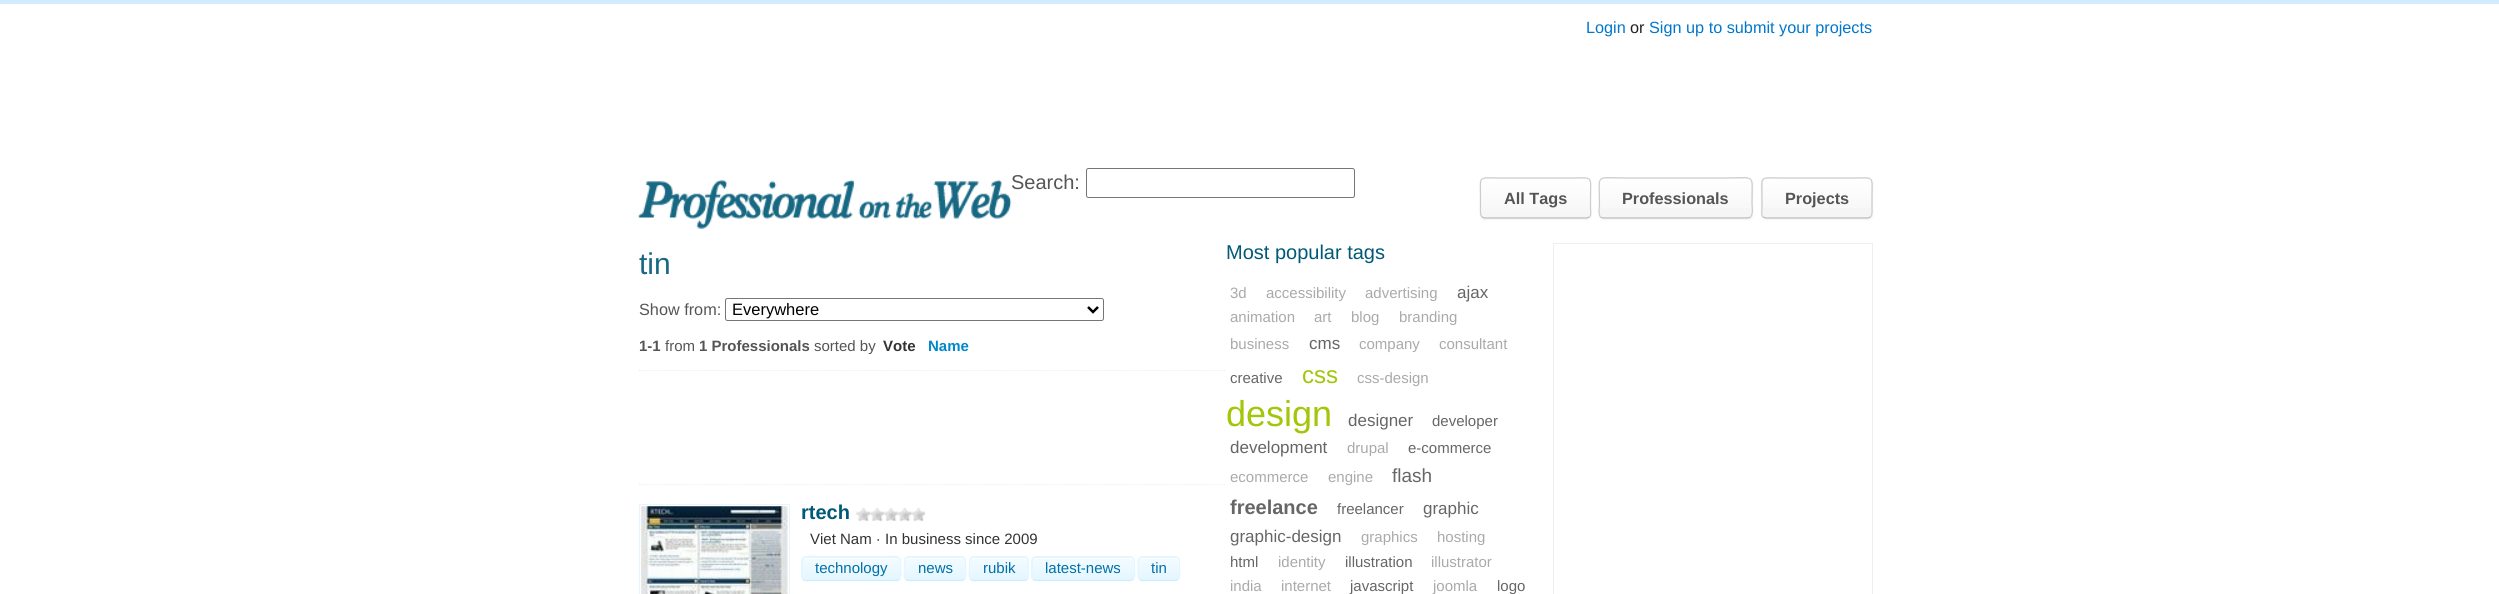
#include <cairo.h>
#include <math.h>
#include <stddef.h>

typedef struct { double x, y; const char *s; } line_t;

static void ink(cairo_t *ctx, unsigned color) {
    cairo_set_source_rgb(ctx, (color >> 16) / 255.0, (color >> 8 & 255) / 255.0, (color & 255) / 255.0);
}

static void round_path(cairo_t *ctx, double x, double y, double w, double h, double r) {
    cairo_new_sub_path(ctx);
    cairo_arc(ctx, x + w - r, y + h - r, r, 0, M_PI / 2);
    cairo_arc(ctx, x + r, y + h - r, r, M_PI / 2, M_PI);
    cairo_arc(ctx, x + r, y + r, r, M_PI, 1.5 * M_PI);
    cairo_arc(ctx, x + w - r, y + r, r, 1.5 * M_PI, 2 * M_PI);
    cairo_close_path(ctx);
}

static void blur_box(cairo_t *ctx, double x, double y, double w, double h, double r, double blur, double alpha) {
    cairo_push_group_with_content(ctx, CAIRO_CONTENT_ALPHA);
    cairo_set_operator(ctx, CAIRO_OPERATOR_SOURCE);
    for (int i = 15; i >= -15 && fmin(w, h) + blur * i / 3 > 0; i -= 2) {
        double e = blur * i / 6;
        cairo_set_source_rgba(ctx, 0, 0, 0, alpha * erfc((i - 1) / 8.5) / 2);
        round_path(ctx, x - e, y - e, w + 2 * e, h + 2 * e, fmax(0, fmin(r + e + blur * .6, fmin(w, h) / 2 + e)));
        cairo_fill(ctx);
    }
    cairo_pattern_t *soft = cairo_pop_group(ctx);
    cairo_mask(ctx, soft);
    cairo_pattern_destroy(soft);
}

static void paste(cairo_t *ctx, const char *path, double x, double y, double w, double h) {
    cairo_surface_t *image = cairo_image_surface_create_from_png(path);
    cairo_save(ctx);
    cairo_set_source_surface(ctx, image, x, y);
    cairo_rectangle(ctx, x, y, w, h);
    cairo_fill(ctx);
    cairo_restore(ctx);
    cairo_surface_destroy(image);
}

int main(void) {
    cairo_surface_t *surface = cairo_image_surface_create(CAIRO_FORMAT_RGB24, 2499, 594);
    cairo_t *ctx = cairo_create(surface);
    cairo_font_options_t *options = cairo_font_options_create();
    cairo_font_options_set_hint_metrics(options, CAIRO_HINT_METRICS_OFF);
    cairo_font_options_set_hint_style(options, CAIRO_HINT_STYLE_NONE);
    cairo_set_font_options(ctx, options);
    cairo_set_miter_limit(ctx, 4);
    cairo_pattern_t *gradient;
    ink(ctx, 0xFFFFFF);
    cairo_paint(ctx);
    ink(ctx, 0xD2ECFF);
    cairo_rectangle(ctx, 0, 0, 2499, 4);
    cairo_fill(ctx);
    cairo_select_font_face(ctx, "Liberation Sans", CAIRO_FONT_SLANT_NORMAL, CAIRO_FONT_WEIGHT_NORMAL);
    cairo_set_font_size(ctx, 16.25);
    ink(ctx, 0x0077CC);
    cairo_move_to(ctx, 1586, 33);
    cairo_show_text(ctx, "Login");
    ink(ctx, 0x222222);
    cairo_move_to(ctx, 1630, 33);
    cairo_show_text(ctx, "or");
    ink(ctx, 0x0077CC);
    cairo_move_to(ctx, 1649, 33);
    cairo_show_text(ctx, "Sign up to submit your projects");
    paste(ctx, "media/1.png", 638, 179, 374, 50);
    cairo_set_font_size(ctx, 20);
    ink(ctx, 0x555555);
    cairo_move_to(ctx, 1011, 189);
    cairo_show_text(ctx, "Search:");
    round_path(ctx, 1086.5, 168.5, 268, 29, 2);
    ink(ctx, 0x767676);
    cairo_set_line_width(ctx, 1);
    cairo_stroke(ctx);
    ink(ctx, 0x000000);
    blur_box(ctx, 1480, 179, 111, 41, 5, 1, 0.05);
    ink(ctx, 0xF5F5F5);
    round_path(ctx, 1480, 178, 111, 41, 5);
    cairo_fill(ctx);
    cairo_save(ctx);
    round_path(ctx, 1480, 178, 111, 41, 5);
    cairo_clip(ctx);
    gradient = cairo_pattern_create_linear(1536, 179, 1536, 218);
    cairo_pattern_add_color_stop_rgba(gradient, 0, 1, 1, 1, 1);
    cairo_pattern_add_color_stop_rgba(gradient, 1, 0.961, 0.961, 0.961, 1);
    cairo_set_source(ctx, gradient);
    cairo_pattern_destroy(gradient);
    cairo_rectangle(ctx, 1481, 179, 109, 39);
    cairo_fill(ctx);
    cairo_restore(ctx);
    cairo_new_path(ctx);
    cairo_move_to(ctx, 1589.5, 217);
    cairo_line_to(ctx, 1586.5, 218);
    cairo_line_to(ctx, 1484.5, 218);
    cairo_line_to(ctx, 1482, 217);
    ink(ctx, 0xBBBBBB);
    cairo_set_line_width(ctx, 1.2);
    cairo_stroke(ctx);
    cairo_new_path(ctx);
    cairo_move_to(ctx, 1482, 217);
    cairo_curve_to(ctx, 1480, 215, 1480.5, 211, 1480.5, 208.5);
    cairo_line_to(ctx, 1480.5, 198);
    cairo_curve_to(ctx, 1480.5, 174.5, 1477, 178, 1502, 178);
    cairo_line_to(ctx, 1569.5, 178);
    cairo_curve_to(ctx, 1594, 178, 1590.5, 174.5, 1590.5, 198);
    cairo_line_to(ctx, 1590.5, 208.5);
    cairo_curve_to(ctx, 1590.5, 211, 1591.5, 215, 1589.5, 217);
    ink(ctx, 0xCCCCCC);
    cairo_stroke(ctx);
    cairo_select_font_face(ctx, "Liberation Sans", CAIRO_FONT_SLANT_NORMAL, CAIRO_FONT_WEIGHT_BOLD);
    cairo_set_font_size(ctx, 16.25);
    ink(ctx, 0x555555);
    cairo_move_to(ctx, 1504, 204);
    cairo_show_text(ctx, "All Tags");
    ink(ctx, 0x000000);
    blur_box(ctx, 1599, 179, 154, 41, 5, 1, 0.05);
    ink(ctx, 0xF5F5F5);
    round_path(ctx, 1599, 178, 154, 41, 5);
    cairo_fill(ctx);
    gradient = cairo_pattern_create_linear(1676, 179, 1676, 218);
    cairo_pattern_add_color_stop_rgba(gradient, 0, 1, 1, 1, 1);
    cairo_pattern_add_color_stop_rgba(gradient, 1, 0.961, 0.961, 0.961, 1);
    cairo_set_source(ctx, gradient);
    cairo_pattern_destroy(gradient);
    cairo_rectangle(ctx, 1600, 179, 151, 29);
    cairo_fill(ctx);
    cairo_new_path(ctx);
    cairo_move_to(ctx, 1750.5, 217);
    cairo_curve_to(ctx, 1750, 217.5, 1748.5, 218, 1747.5, 218);
    cairo_line_to(ctx, 1604, 218);
    cairo_curve_to(ctx, 1602.5, 218, 1601.5, 217.5, 1600.5, 217);
    ink(ctx, 0xBBBBBB);
    cairo_stroke(ctx);
    cairo_new_path(ctx);
    cairo_move_to(ctx, 1600.5, 217);
    cairo_curve_to(ctx, 1598, 214, 1599.5, 206.5, 1599.5, 203.5);
    cairo_curve_to(ctx, 1599.5, 172.5, 1594, 178, 1627.5, 178);
    cairo_line_to(ctx, 1723.5, 178);
    cairo_curve_to(ctx, 1757, 178, 1752, 172.5, 1752, 203.5);
    cairo_curve_to(ctx, 1752, 206.5, 1753.5, 214, 1750.5, 217);
    ink(ctx, 0xCCCCCC);
    cairo_stroke(ctx);
    ink(ctx, 0x555555);
    cairo_move_to(ctx, 1622, 204);
    cairo_show_text(ctx, "Professionals");
    ink(ctx, 0x000000);
    blur_box(ctx, 1761, 179, 112, 41, 5, 1, 0.05);
    ink(ctx, 0xF5F5F5);
    round_path(ctx, 1761, 178, 112, 41, 5);
    cairo_fill(ctx);
    gradient = cairo_pattern_create_linear(1817, 179, 1817, 218);
    cairo_pattern_add_color_stop_rgba(gradient, 0, 1, 1, 1, 1);
    cairo_pattern_add_color_stop_rgba(gradient, 1, 0.961, 0.961, 0.961, 1);
    cairo_set_source(ctx, gradient);
    cairo_pattern_destroy(gradient);
    cairo_rectangle(ctx, 1763, 179, 108, 29);
    cairo_fill(ctx);
    cairo_new_path(ctx);
    cairo_move_to(ctx, 1870.5, 217);
    cairo_line_to(ctx, 1868, 218);
    cairo_line_to(ctx, 1766, 218);
    cairo_line_to(ctx, 1763, 217);
    ink(ctx, 0xBBBBBB);
    cairo_stroke(ctx);
    cairo_new_path(ctx);
    cairo_move_to(ctx, 1763, 217);
    cairo_curve_to(ctx, 1761, 215, 1762, 211, 1762, 208.5);
    cairo_line_to(ctx, 1762, 198);
    cairo_curve_to(ctx, 1762, 174.5, 1758.5, 178, 1783, 178);
    cairo_line_to(ctx, 1850.5, 178);
    cairo_curve_to(ctx, 1875.5, 178, 1872, 174.5, 1872, 198);
    cairo_line_to(ctx, 1872, 208.5);
    cairo_curve_to(ctx, 1872, 211, 1872.5, 215, 1870.5, 217);
    ink(ctx, 0xCCCCCC);
    cairo_stroke(ctx);
    ink(ctx, 0x555555);
    cairo_move_to(ctx, 1785, 204);
    cairo_show_text(ctx, "Projects");
    cairo_select_font_face(ctx, "Liberation Sans", CAIRO_FONT_SLANT_NORMAL, CAIRO_FONT_WEIGHT_NORMAL);
    cairo_set_font_size(ctx, 30);
    ink(ctx, 0x176883);
    cairo_move_to(ctx, 639, 274);
    cairo_show_text(ctx, "tin");
    cairo_set_font_size(ctx, 16.25);
    ink(ctx, 0x555555);
    cairo_move_to(ctx, 639, 315);
    cairo_show_text(ctx, "Show from:");
    round_path(ctx, 725.5, 298.5, 378, 22, 2);
    ink(ctx, 0x767676);
    cairo_set_line_width(ctx, 1);
    cairo_stroke(ctx);
    cairo_new_path(ctx);
    cairo_move_to(ctx, 1088, 307);
    cairo_line_to(ctx, 1093, 312);
    cairo_line_to(ctx, 1098, 307);
    ink(ctx, 0x000000);
    cairo_set_line_width(ctx, 2.5);
    cairo_stroke(ctx);
    cairo_set_font_size(ctx, 16.5);
    cairo_move_to(ctx, 732, 315);
    cairo_show_text(ctx, "Everywhere");
    cairo_select_font_face(ctx, "Liberation Sans", CAIRO_FONT_SLANT_NORMAL, CAIRO_FONT_WEIGHT_BOLD);
    cairo_set_font_size(ctx, 15);
    ink(ctx, 0x555555);
    cairo_move_to(ctx, 639, 351);
    cairo_show_text(ctx, "1-1");
    cairo_select_font_face(ctx, "Liberation Sans", CAIRO_FONT_SLANT_NORMAL, CAIRO_FONT_WEIGHT_NORMAL);
    cairo_move_to(ctx, 665, 351);
    cairo_show_text(ctx, "from");
    cairo_select_font_face(ctx, "Liberation Sans", CAIRO_FONT_SLANT_NORMAL, CAIRO_FONT_WEIGHT_BOLD);
    cairo_move_to(ctx, 699, 351);
    cairo_show_text(ctx, "1 Professionals");
    cairo_select_font_face(ctx, "Liberation Sans", CAIRO_FONT_SLANT_NORMAL, CAIRO_FONT_WEIGHT_NORMAL);
    cairo_move_to(ctx, 814, 351);
    cairo_show_text(ctx, "sorted by");
    cairo_select_font_face(ctx, "Liberation Sans", CAIRO_FONT_SLANT_NORMAL, CAIRO_FONT_WEIGHT_BOLD);
    ink(ctx, 0x333333);
    cairo_move_to(ctx, 883, 351);
    cairo_show_text(ctx, "Vote");
    ink(ctx, 0x0088CC);
    cairo_move_to(ctx, 928, 351);
    cairo_show_text(ctx, "Name");
    cairo_new_path(ctx);
    cairo_move_to(ctx, 639, 370.5);
    cairo_line_to(ctx, 1226, 370.5);
    ink(ctx, 0xEEEEEE);
    cairo_set_line_width(ctx, 1.2);
    cairo_set_dash(ctx, (double[]){1.25, 1.25}, 2, 0);
    cairo_stroke(ctx);
    cairo_new_path(ctx);
    cairo_move_to(ctx, 639, 484.5);
    cairo_line_to(ctx, 1226, 484.5);
    cairo_stroke(ctx);
    cairo_rectangle(ctx, 639.5, 504.5, 150, 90);
    ink(ctx, 0xE4F6FF);
    cairo_set_line_width(ctx, 1);
    cairo_set_dash(ctx, NULL, 0, 0);
    cairo_stroke(ctx);
    paste(ctx, "media/2.png", 641, 506, 147, 88);
    cairo_set_font_size(ctx, 20);
    ink(ctx, 0x005977);
    cairo_move_to(ctx, 801, 519);
    cairo_show_text(ctx, "rtech");
    paste(ctx, "media/3.png", 856, 507, 69, 15);
    cairo_select_font_face(ctx, "Liberation Sans", CAIRO_FONT_SLANT_NORMAL, CAIRO_FONT_WEIGHT_NORMAL);
    cairo_set_font_size(ctx, 15);
    ink(ctx, 0x333333);
    cairo_move_to(ctx, 810, 544);
    cairo_show_text(ctx, "Viet Nam · In business since 2009");
    ink(ctx, 0xE4F6FF);
    round_path(ctx, 801, 556, 100, 25, 5);
    cairo_fill(ctx);
    gradient = cairo_pattern_create_linear(851, 558, 851, 580);
    cairo_pattern_add_color_stop_rgba(gradient, 0, 0.953, 0.984, 1, 1);
    cairo_pattern_add_color_stop_rgba(gradient, 1, 0.894, 0.965, 1, 1);
    cairo_set_source(ctx, gradient);
    cairo_pattern_destroy(gradient);
    cairo_rectangle(ctx, 803, 558, 97, 22);
    cairo_fill(ctx);
    ink(ctx, 0xFEFFFF);
    cairo_new_path(ctx);
    cairo_move_to(ctx, 806, 559);
    cairo_line_to(ctx, 896, 559);
    cairo_curve_to(ctx, 898, 559, 900, 560, 900, 562);
    cairo_curve_to(ctx, 900, 560, 898, 558, 896, 558);
    cairo_line_to(ctx, 807, 558);
    cairo_curve_to(ctx, 806, 558, 805, 559, 804, 559);
    cairo_close_path(ctx);
    cairo_fill(ctx);
    cairo_new_path(ctx);
    cairo_move_to(ctx, 899.5, 579.5);
    cairo_curve_to(ctx, 898.5, 580, 897.5, 580.5, 896, 580.5);
    cairo_line_to(ctx, 806, 580.5);
    cairo_curve_to(ctx, 805, 580.5, 804, 580, 803, 579.5);
    ink(ctx, 0xCAEDFF);
    cairo_set_line_width(ctx, 1.2);
    cairo_stroke(ctx);
    cairo_new_path(ctx);
    cairo_move_to(ctx, 803, 579.5);
    cairo_curve_to(ctx, 800.5, 576.5, 802, 569.5, 802, 566);
    cairo_line_to(ctx, 802, 560.5);
    cairo_curve_to(ctx, 803.5, 553.5, 820.5, 557, 821, 557);
    cairo_line_to(ctx, 881, 557);
    cairo_curve_to(ctx, 882, 557, 899, 553.5, 900.5, 560.5);
    cairo_line_to(ctx, 900.5, 566);
    cairo_curve_to(ctx, 900.5, 569.5, 902, 576.5, 899.5, 579.5);
    ink(ctx, 0xE4F6FF);
    cairo_stroke(ctx);
    ink(ctx, 0x0070A8);
    cairo_move_to(ctx, 815, 573);
    cairo_show_text(ctx, "technology");
    ink(ctx, 0xE4F6FF);
    round_path(ctx, 904, 556, 62, 25, 5);
    cairo_fill(ctx);
    gradient = cairo_pattern_create_linear(935, 558, 935, 580);
    cairo_pattern_add_color_stop_rgba(gradient, 0, 0.953, 0.984, 1, 1);
    cairo_pattern_add_color_stop_rgba(gradient, 1, 0.894, 0.965, 1, 1);
    cairo_set_source(ctx, gradient);
    cairo_pattern_destroy(gradient);
    cairo_rectangle(ctx, 905, 558, 60, 22);
    cairo_fill(ctx);
    ink(ctx, 0xFEFFFF);
    cairo_set_fill_rule(ctx, CAIRO_FILL_RULE_EVEN_ODD);
    cairo_new_path(ctx);
    cairo_move_to(ctx, 909, 559);
    cairo_line_to(ctx, 963, 559);
    cairo_curve_to(ctx, 964, 559, 965, 560, 965, 562);
    cairo_curve_to(ctx, 965, 560, 963, 558, 961, 558);
    cairo_line_to(ctx, 909, 558);
    cairo_curve_to(ctx, 907, 558, 905, 560, 905, 562);
    cairo_curve_to(ctx, 905, 560, 907, 559, 909, 559);
    cairo_close_path(ctx);
    cairo_move_to(ctx, 905, 577);
    cairo_line_to(ctx, 905, 575);
    cairo_close_path(ctx);
    cairo_fill(ctx);
    cairo_new_path(ctx);
    cairo_move_to(ctx, 964.5, 579.5);
    cairo_curve_to(ctx, 963.5, 580, 962.5, 580.5, 961, 580.5);
    cairo_line_to(ctx, 909, 580.5);
    cairo_curve_to(ctx, 907.5, 580.5, 906.5, 580, 905.5, 579.5);
    ink(ctx, 0xCAEDFF);
    cairo_stroke(ctx);
    cairo_new_path(ctx);
    cairo_move_to(ctx, 905.5, 579.5);
    cairo_curve_to(ctx, 903, 577, 904.5, 572, 904.5, 569);
    cairo_curve_to(ctx, 904.5, 556, 904, 557, 917.5, 557);
    cairo_line_to(ctx, 952.5, 557);
    cairo_curve_to(ctx, 964, 557, 965.5, 555, 965.5, 566);
    cairo_curve_to(ctx, 965.5, 569.5, 967, 576.5, 964.5, 579.5);
    ink(ctx, 0xE4F6FF);
    cairo_stroke(ctx);
    ink(ctx, 0x0070A8);
    cairo_move_to(ctx, 918, 573);
    cairo_show_text(ctx, "news");
    ink(ctx, 0xE4F6FF);
    round_path(ctx, 969, 556, 60, 25, 5);
    cairo_fill(ctx);
    gradient = cairo_pattern_create_linear(999, 558, 999, 580);
    cairo_pattern_add_color_stop_rgba(gradient, 0, 0.953, 0.984, 1, 1);
    cairo_pattern_add_color_stop_rgba(gradient, 1, 0.894, 0.965, 1, 1);
    cairo_set_source(ctx, gradient);
    cairo_pattern_destroy(gradient);
    cairo_rectangle(ctx, 970, 558, 58, 22);
    cairo_fill(ctx);
    ink(ctx, 0xFEFFFF);
    cairo_set_fill_rule(ctx, CAIRO_FILL_RULE_WINDING);
    cairo_new_path(ctx);
    cairo_move_to(ctx, 974, 559);
    cairo_line_to(ctx, 1016, 559);
    cairo_curve_to(ctx, 1026, 559, 1028, 558, 1028, 568);
    cairo_line_to(ctx, 1028, 578);
    cairo_line_to(ctx, 1028, 567);
    cairo_curve_to(ctx, 1028, 556, 1026, 558, 1016, 558);
    cairo_line_to(ctx, 982, 558);
    cairo_curve_to(ctx, 980, 558, 973, 556, 971, 560);
    cairo_line_to(ctx, 970, 562);
    cairo_curve_to(ctx, 970, 560, 972, 559, 974, 559);
    cairo_close_path(ctx);
    cairo_fill(ctx);
    cairo_new_path(ctx);
    cairo_move_to(ctx, 1027, 579.5);
    cairo_curve_to(ctx, 1026, 580, 1025, 580.5, 1024, 580.5);
    cairo_line_to(ctx, 974, 580.5);
    cairo_curve_to(ctx, 972.5, 580.5, 971.5, 580, 970.5, 579.5);
    ink(ctx, 0xCAEDFF);
    cairo_stroke(ctx);
    cairo_new_path(ctx);
    cairo_move_to(ctx, 970.5, 579.5);
    cairo_curve_to(ctx, 968, 576.5, 969.5, 569.5, 969.5, 566);
    cairo_curve_to(ctx, 969.5, 555.5, 971, 557, 982, 557);
    cairo_line_to(ctx, 1015.5, 557);
    cairo_curve_to(ctx, 1028.5, 557, 1028, 556, 1028, 569);
    cairo_curve_to(ctx, 1028, 572, 1029.5, 577, 1027, 579.5);
    ink(ctx, 0xE4F6FF);
    cairo_stroke(ctx);
    ink(ctx, 0x0070A8);
    cairo_move_to(ctx, 983, 573);
    cairo_show_text(ctx, "rubik");
    ink(ctx, 0xE4F6FF);
    round_path(ctx, 1031, 556, 104, 25, 5);
    cairo_fill(ctx);
    gradient = cairo_pattern_create_linear(1083, 558, 1083, 580);
    cairo_pattern_add_color_stop_rgba(gradient, 0, 0.953, 0.984, 1, 1);
    cairo_pattern_add_color_stop_rgba(gradient, 1, 0.894, 0.965, 1, 1);
    cairo_set_source(ctx, gradient);
    cairo_pattern_destroy(gradient);
    cairo_rectangle(ctx, 1033, 558, 101, 22);
    cairo_fill(ctx);
    ink(ctx, 0xFEFFFF);
    cairo_new_path(ctx);
    cairo_move_to(ctx, 1036, 559);
    cairo_line_to(ctx, 1130, 559);
    cairo_curve_to(ctx, 1132, 559, 1134, 560, 1134, 562);
    cairo_curve_to(ctx, 1134, 560, 1133, 559, 1132, 558);
    cairo_line_to(ctx, 1037, 558);
    cairo_line_to(ctx, 1034, 559);
    cairo_close_path(ctx);
    cairo_fill(ctx);
    cairo_new_path(ctx);
    cairo_move_to(ctx, 1133, 579.5);
    cairo_line_to(ctx, 1130.5, 580.5);
    cairo_line_to(ctx, 1036, 580.5);
    cairo_line_to(ctx, 1033, 579.5);
    ink(ctx, 0xCAEDFF);
    cairo_stroke(ctx);
    cairo_new_path(ctx);
    cairo_move_to(ctx, 1033, 579.5);
    cairo_curve_to(ctx, 1030.5, 576.5, 1032, 569.5, 1032, 566);
    cairo_curve_to(ctx, 1032, 563, 1031, 557, 1036, 557);
    cairo_line_to(ctx, 1130, 557);
    cairo_curve_to(ctx, 1135, 557, 1134.5, 563, 1134.5, 566);
    cairo_curve_to(ctx, 1134.5, 569.5, 1136, 576.5, 1133, 579.5);
    ink(ctx, 0xE4F6FF);
    cairo_stroke(ctx);
    ink(ctx, 0x0070A8);
    cairo_move_to(ctx, 1045, 573);
    cairo_show_text(ctx, "latest-news");
    ink(ctx, 0xE4F6FF);
    round_path(ctx, 1138, 556, 42, 25, 5);
    cairo_fill(ctx);
    gradient = cairo_pattern_create_linear(1159, 558, 1159, 580);
    cairo_pattern_add_color_stop_rgba(gradient, 0, 0.953, 0.984, 1, 1);
    cairo_pattern_add_color_stop_rgba(gradient, 1, 0.894, 0.965, 1, 1);
    cairo_set_source(ctx, gradient);
    cairo_pattern_destroy(gradient);
    cairo_rectangle(ctx, 1139, 558, 40, 22);
    cairo_fill(ctx);
    ink(ctx, 0xFEFFFF);
    cairo_new_path(ctx);
    cairo_move_to(ctx, 1142, 559);
    cairo_line_to(ctx, 1170, 559);
    cairo_curve_to(ctx, 1177, 558.5, 1179, 558.5, 1179, 568);
    cairo_line_to(ctx, 1179, 562);
    cairo_curve_to(ctx, 1179, 560, 1177, 558, 1175, 558);
    cairo_line_to(ctx, 1143, 558);
    cairo_curve_to(ctx, 1141.5, 558, 1140, 559, 1139.5, 560.5);
    cairo_curve_to(ctx, 1140, 559.5, 1140.5, 559, 1142, 559);
    cairo_close_path(ctx);
    cairo_fill(ctx);
    cairo_new_path(ctx);
    cairo_move_to(ctx, 1178, 579.5);
    cairo_curve_to(ctx, 1177.5, 580, 1176, 580.5, 1175, 580.5);
    cairo_line_to(ctx, 1142.5, 580.5);
    cairo_curve_to(ctx, 1141.5, 580.5, 1140, 580, 1139.5, 579.5);
    ink(ctx, 0xCAEDFF);
    cairo_stroke(ctx);
    cairo_new_path(ctx);
    cairo_move_to(ctx, 1139.5, 579.5);
    cairo_curve_to(ctx, 1137, 577, 1138, 572, 1138, 569);
    cairo_line_to(ctx, 1138, 560.5);
    cairo_curve_to(ctx, 1139, 556, 1144.5, 557, 1148, 557);
    cairo_line_to(ctx, 1169.5, 557);
    cairo_curve_to(ctx, 1173, 557, 1178.5, 556, 1179.5, 560.5);
    cairo_line_to(ctx, 1179.5, 569);
    cairo_curve_to(ctx, 1179.5, 572, 1180.5, 577, 1178, 579.5);
    ink(ctx, 0xE4F6FF);
    cairo_stroke(ctx);
    ink(ctx, 0x0070A8);
    cairo_move_to(ctx, 1151, 573);
    cairo_show_text(ctx, "tin");
    cairo_set_font_size(ctx, 20);
    ink(ctx, 0x005977);
    cairo_move_to(ctx, 1226, 259);
    cairo_show_text(ctx, "Most popular tags");
    cairo_rectangle(ctx, 1553.5, 243.5, 319, 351);
    ink(ctx, 0xEEEEEE);
    cairo_set_line_width(ctx, 1);
    cairo_stroke(ctx);
    cairo_set_font_size(ctx, 15);
    ink(ctx, 0xAAAAAA);
    {
        static const line_t items[] = {
            {1230, 298, "3d"},
            {1266, 298, "accessibility"},
            {1365, 298, "advertising"},
        };
        for (size_t i = 0; i < sizeof items / sizeof *items; i++) {
            cairo_move_to(ctx, items[i].x, items[i].y);
            cairo_show_text(ctx, items[i].s);
        }
    }
    cairo_set_font_size(ctx, 17);
    ink(ctx, 0x666666);
    cairo_move_to(ctx, 1457, 298);
    cairo_show_text(ctx, "ajax");
    cairo_set_font_size(ctx, 15);
    ink(ctx, 0xAAAAAA);
    {
        static const line_t items[] = {
            {1230, 322, "animation"},
            {1314, 322, "art"},
            {1351, 322, "blog"},
            {1399, 322, "branding"},
            {1230, 349, "business"},
        };
        for (size_t i = 0; i < sizeof items / sizeof *items; i++) {
            cairo_move_to(ctx, items[i].x, items[i].y);
            cairo_show_text(ctx, items[i].s);
        }
    }
    cairo_set_font_size(ctx, 17);
    ink(ctx, 0x666666);
    cairo_move_to(ctx, 1309, 349);
    cairo_show_text(ctx, "cms");
    cairo_set_font_size(ctx, 15);
    ink(ctx, 0xAAAAAA);
    cairo_move_to(ctx, 1359, 349);
    cairo_show_text(ctx, "company");
    cairo_move_to(ctx, 1439, 349);
    cairo_show_text(ctx, "consultant");
    ink(ctx, 0x666666);
    cairo_move_to(ctx, 1230, 383);
    cairo_show_text(ctx, "creative");
    cairo_set_font_size(ctx, 24);
    ink(ctx, 0xA2C609);
    cairo_move_to(ctx, 1302, 383);
    cairo_show_text(ctx, "css");
    cairo_set_font_size(ctx, 15);
    ink(ctx, 0xAAAAAA);
    cairo_move_to(ctx, 1357, 383);
    cairo_show_text(ctx, "css-design");
    cairo_set_font_size(ctx, 36);
    ink(ctx, 0xA2C609);
    cairo_move_to(ctx, 1226, 426);
    cairo_show_text(ctx, "design");
    cairo_set_font_size(ctx, 17);
    ink(ctx, 0x666666);
    cairo_move_to(ctx, 1348, 426);
    cairo_show_text(ctx, "designer");
    cairo_set_font_size(ctx, 15);
    cairo_move_to(ctx, 1432, 426);
    cairo_show_text(ctx, "developer");
    cairo_set_font_size(ctx, 17);
    cairo_move_to(ctx, 1230, 453);
    cairo_show_text(ctx, "development");
    cairo_set_font_size(ctx, 15);
    ink(ctx, 0xAAAAAA);
    cairo_move_to(ctx, 1347, 453);
    cairo_show_text(ctx, "drupal");
    ink(ctx, 0x666666);
    cairo_move_to(ctx, 1408, 453);
    cairo_show_text(ctx, "e-commerce");
    ink(ctx, 0xAAAAAA);
    cairo_move_to(ctx, 1230, 482);
    cairo_show_text(ctx, "ecommerce");
    cairo_move_to(ctx, 1328, 482);
    cairo_show_text(ctx, "engine");
    cairo_set_font_size(ctx, 19);
    ink(ctx, 0x666666);
    cairo_move_to(ctx, 1392, 482);
    cairo_show_text(ctx, "flash");
    cairo_select_font_face(ctx, "Liberation Sans", CAIRO_FONT_SLANT_NORMAL, CAIRO_FONT_WEIGHT_BOLD);
    cairo_set_font_size(ctx, 20);
    cairo_move_to(ctx, 1230, 514);
    cairo_show_text(ctx, "freelance");
    cairo_select_font_face(ctx, "Liberation Sans", CAIRO_FONT_SLANT_NORMAL, CAIRO_FONT_WEIGHT_NORMAL);
    cairo_set_font_size(ctx, 15);
    cairo_move_to(ctx, 1337, 514);
    cairo_show_text(ctx, "freelancer");
    cairo_set_font_size(ctx, 17);
    cairo_move_to(ctx, 1423, 514);
    cairo_show_text(ctx, "graphic");
    cairo_move_to(ctx, 1230, 542);
    cairo_show_text(ctx, "graphic-design");
    cairo_set_font_size(ctx, 15);
    ink(ctx, 0xAAAAAA);
    cairo_move_to(ctx, 1361, 542);
    cairo_show_text(ctx, "graphics");
    cairo_move_to(ctx, 1437, 542);
    cairo_show_text(ctx, "hosting");
    ink(ctx, 0x666666);
    cairo_move_to(ctx, 1230, 567);
    cairo_show_text(ctx, "html");
    ink(ctx, 0xAAAAAA);
    cairo_move_to(ctx, 1278, 567);
    cairo_show_text(ctx, "identity");
    ink(ctx, 0x666666);
    cairo_move_to(ctx, 1345, 567);
    cairo_show_text(ctx, "illustration");
    ink(ctx, 0xAAAAAA);
    {
        static const line_t items[] = {
            {1431, 567, "illustrator"},
            {1230, 591, "india"},
            {1281, 591, "internet"},
        };
        for (size_t i = 0; i < sizeof items / sizeof *items; i++) {
            cairo_move_to(ctx, items[i].x, items[i].y);
            cairo_show_text(ctx, items[i].s);
        }
    }
    ink(ctx, 0x666666);
    cairo_move_to(ctx, 1350, 591);
    cairo_show_text(ctx, "javascript");
    ink(ctx, 0xAAAAAA);
    cairo_move_to(ctx, 1433, 591);
    cairo_show_text(ctx, "joomla");
    ink(ctx, 0x666666);
    cairo_move_to(ctx, 1497, 591);
    cairo_show_text(ctx, "logo");
    cairo_surface_write_to_png(surface, "image.png");
    cairo_font_options_destroy(options);
    cairo_destroy(ctx);
    cairo_surface_destroy(surface);
    return 0;
}
